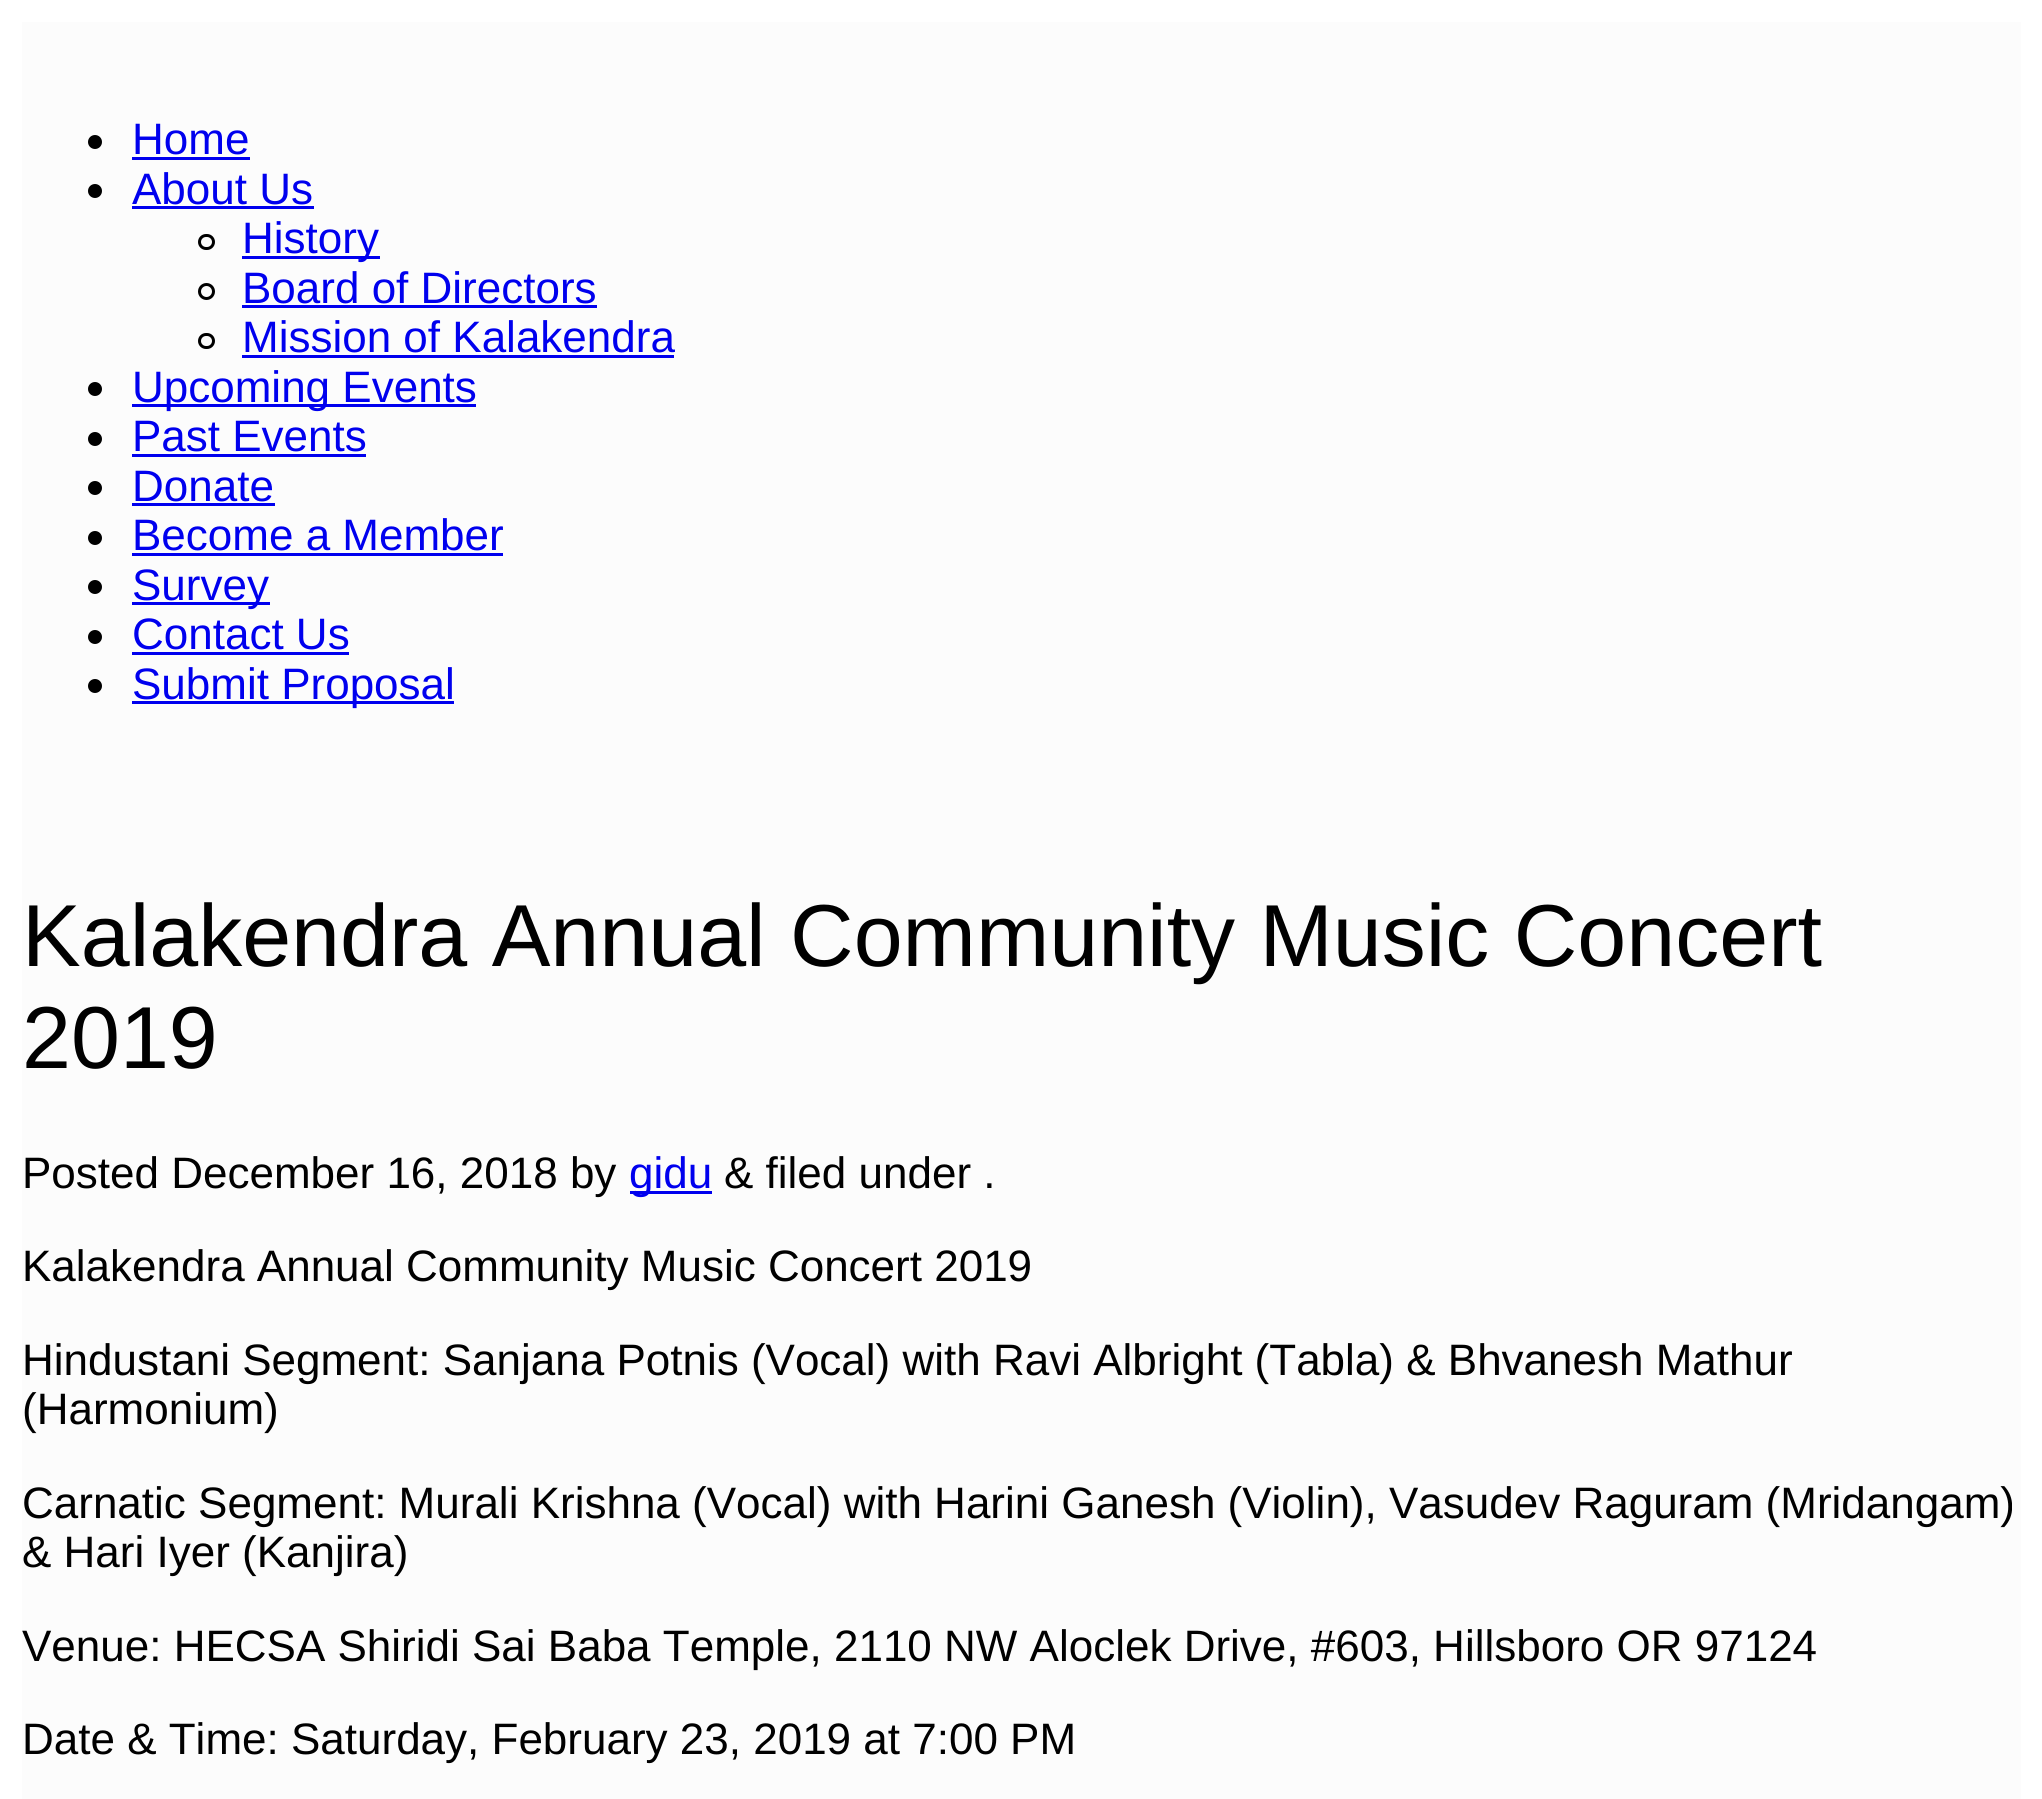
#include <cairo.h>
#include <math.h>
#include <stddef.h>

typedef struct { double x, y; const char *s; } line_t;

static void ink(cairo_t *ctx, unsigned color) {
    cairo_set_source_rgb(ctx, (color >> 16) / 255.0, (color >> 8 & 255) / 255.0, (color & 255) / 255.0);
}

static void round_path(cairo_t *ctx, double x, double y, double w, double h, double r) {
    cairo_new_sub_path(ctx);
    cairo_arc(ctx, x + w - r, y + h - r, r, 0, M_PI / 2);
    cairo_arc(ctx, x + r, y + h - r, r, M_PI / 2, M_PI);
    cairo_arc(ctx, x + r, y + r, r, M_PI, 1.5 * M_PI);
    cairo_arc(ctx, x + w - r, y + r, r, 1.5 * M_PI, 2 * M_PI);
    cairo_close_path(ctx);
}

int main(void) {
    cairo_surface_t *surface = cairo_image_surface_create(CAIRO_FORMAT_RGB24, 2042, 1799);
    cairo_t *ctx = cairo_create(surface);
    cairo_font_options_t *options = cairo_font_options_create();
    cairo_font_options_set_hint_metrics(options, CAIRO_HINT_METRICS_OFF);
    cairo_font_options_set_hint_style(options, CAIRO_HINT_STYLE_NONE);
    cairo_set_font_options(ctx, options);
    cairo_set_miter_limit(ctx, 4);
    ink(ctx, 0xFFFFFF);
    cairo_paint(ctx);
    ink(ctx, 0xFCFCFC);
    cairo_rectangle(ctx, 22, 22, 1999, 1777);
    cairo_fill(ctx);
    ink(ctx, 0x000000);
    cairo_arc(ctx, 95, 142, 7, 0, 2 * M_PI);
    cairo_fill(ctx);
    cairo_select_font_face(ctx, "Liberation Sans", CAIRO_FONT_SLANT_NORMAL, CAIRO_FONT_WEIGHT_NORMAL);
    cairo_set_font_size(ctx, 44);
    ink(ctx, 0x0000EE);
    cairo_move_to(ctx, 132, 154);
    cairo_show_text(ctx, "Home");
    cairo_rectangle(ctx, 132, 157, 118, 3);
    cairo_fill(ctx);
    ink(ctx, 0x000000);
    cairo_arc(ctx, 95, 191, 7, 0, 2 * M_PI);
    cairo_fill(ctx);
    ink(ctx, 0x0000EE);
    cairo_move_to(ctx, 132, 204);
    cairo_show_text(ctx, "About Us");
    cairo_rectangle(ctx, 132, 206, 182, 3);
    cairo_fill(ctx);
    round_path(ctx, 199.5, 235.5, 14, 13, 6.5);
    ink(ctx, 0x000000);
    cairo_set_line_width(ctx, 3);
    cairo_stroke(ctx);
    ink(ctx, 0x0000EE);
    cairo_rectangle(ctx, 242, 256, 138, 3);
    cairo_fill(ctx);
    cairo_move_to(ctx, 242, 253);
    cairo_show_text(ctx, "History");
    cairo_new_path(ctx);
    cairo_arc(ctx, 206.5, 291.5, 7, 0, 2 * M_PI);
    ink(ctx, 0x000000);
    cairo_stroke(ctx);
    ink(ctx, 0x0000EE);
    cairo_move_to(ctx, 242, 303);
    cairo_show_text(ctx, "Board of Directors");
    cairo_rectangle(ctx, 242, 305, 355, 3);
    cairo_fill(ctx);
    round_path(ctx, 199.5, 334.5, 14, 13, 6.5);
    ink(ctx, 0x000000);
    cairo_stroke(ctx);
    ink(ctx, 0x0000EE);
    cairo_move_to(ctx, 242, 352);
    cairo_show_text(ctx, "Mission of Kalakendra");
    cairo_rectangle(ctx, 242, 355, 432, 3);
    cairo_fill(ctx);
    ink(ctx, 0x000000);
    cairo_arc(ctx, 95, 389, 7, 0, 2 * M_PI);
    cairo_fill(ctx);
    ink(ctx, 0x0000EE);
    cairo_rectangle(ctx, 132, 404, 344, 3);
    cairo_fill(ctx);
    cairo_move_to(ctx, 132, 402);
    cairo_show_text(ctx, "Upcoming Events");
    ink(ctx, 0x000000);
    cairo_new_path(ctx);
    cairo_arc(ctx, 95, 439, 7, 0, 2 * M_PI);
    cairo_fill(ctx);
    ink(ctx, 0x0000EE);
    cairo_move_to(ctx, 132, 451);
    cairo_show_text(ctx, "Past Events");
    cairo_rectangle(ctx, 132, 454, 234, 3);
    cairo_fill(ctx);
    ink(ctx, 0x000000);
    cairo_arc(ctx, 95, 488, 7, 0, 2 * M_PI);
    cairo_fill(ctx);
    ink(ctx, 0x0000EE);
    cairo_move_to(ctx, 132, 501);
    cairo_show_text(ctx, "Donate");
    cairo_rectangle(ctx, 132, 503, 143, 3);
    cairo_fill(ctx);
    ink(ctx, 0x000000);
    cairo_arc(ctx, 95, 538, 7, 0, 2 * M_PI);
    cairo_fill(ctx);
    ink(ctx, 0x0000EE);
    cairo_move_to(ctx, 132, 550);
    cairo_show_text(ctx, "Become a Member");
    cairo_rectangle(ctx, 132, 553, 371, 3);
    cairo_fill(ctx);
    ink(ctx, 0x000000);
    cairo_arc(ctx, 95, 587, 7, 0, 2 * M_PI);
    cairo_fill(ctx);
    ink(ctx, 0x0000EE);
    cairo_rectangle(ctx, 132, 602, 138, 3);
    cairo_fill(ctx);
    cairo_move_to(ctx, 132, 600);
    cairo_show_text(ctx, "Survey");
    ink(ctx, 0x000000);
    cairo_new_path(ctx);
    cairo_arc(ctx, 95, 637, 7, 0, 2 * M_PI);
    cairo_fill(ctx);
    ink(ctx, 0x0000EE);
    cairo_move_to(ctx, 132, 649);
    cairo_show_text(ctx, "Contact Us");
    cairo_rectangle(ctx, 132, 652, 217, 3);
    cairo_fill(ctx);
    ink(ctx, 0x000000);
    cairo_arc(ctx, 95, 686, 7, 0, 2 * M_PI);
    cairo_fill(ctx);
    ink(ctx, 0x0000EE);
    cairo_rectangle(ctx, 132, 701, 322, 3);
    cairo_fill(ctx);
    cairo_move_to(ctx, 132, 699);
    cairo_show_text(ctx, "Submit Proposal");
    cairo_set_font_size(ctx, 88);
    ink(ctx, 0x000000);
    cairo_move_to(ctx, 22, 966);
    cairo_show_text(ctx, "Kalakendra Annual Community Music Concert");
    cairo_move_to(ctx, 22, 1068);
    cairo_show_text(ctx, "2019");
    cairo_set_font_size(ctx, 44);
    cairo_move_to(ctx, 22, 1188);
    cairo_show_text(ctx, "Posted December 16, 2018 by");
    ink(ctx, 0x0000EE);
    cairo_rectangle(ctx, 630, 1191, 82, 3);
    cairo_fill(ctx);
    cairo_move_to(ctx, 629, 1188);
    cairo_show_text(ctx, "gidu");
    ink(ctx, 0x000000);
    {
        static const line_t items[] = {
            {724, 1188, "& filed under ."},
            {22, 1281, "Kalakendra Annual Community Music Concert 2019"},
            {22, 1375, "Hindustani Segment: Sanjana Potnis (Vocal) with Ravi Albright (Tabla) & Bhvanesh Mathur"},
            {22, 1424, "(Harmonium)"},
            {22, 1518, "Carnatic Segment: Murali Krishna (Vocal) with Harini Ganesh (Violin), Vasudev Raguram (Mridangam)"},
            {22, 1567, "& Hari Iyer (Kanjira)"},
            {22, 1661, "Venue: HECSA Shiridi Sai Baba Temple, 2110 NW Aloclek Drive, #603, Hillsboro OR 97124"},
            {22, 1754, "Date & Time: Saturday, February 23, 2019 at 7:00 PM"},
        };
        for (size_t i = 0; i < sizeof items / sizeof *items; i++) {
            cairo_move_to(ctx, items[i].x, items[i].y);
            cairo_show_text(ctx, items[i].s);
        }
    }
    cairo_surface_write_to_png(surface, "image.png");
    cairo_font_options_destroy(options);
    cairo_destroy(ctx);
    cairo_surface_destroy(surface);
    return 0;
}
